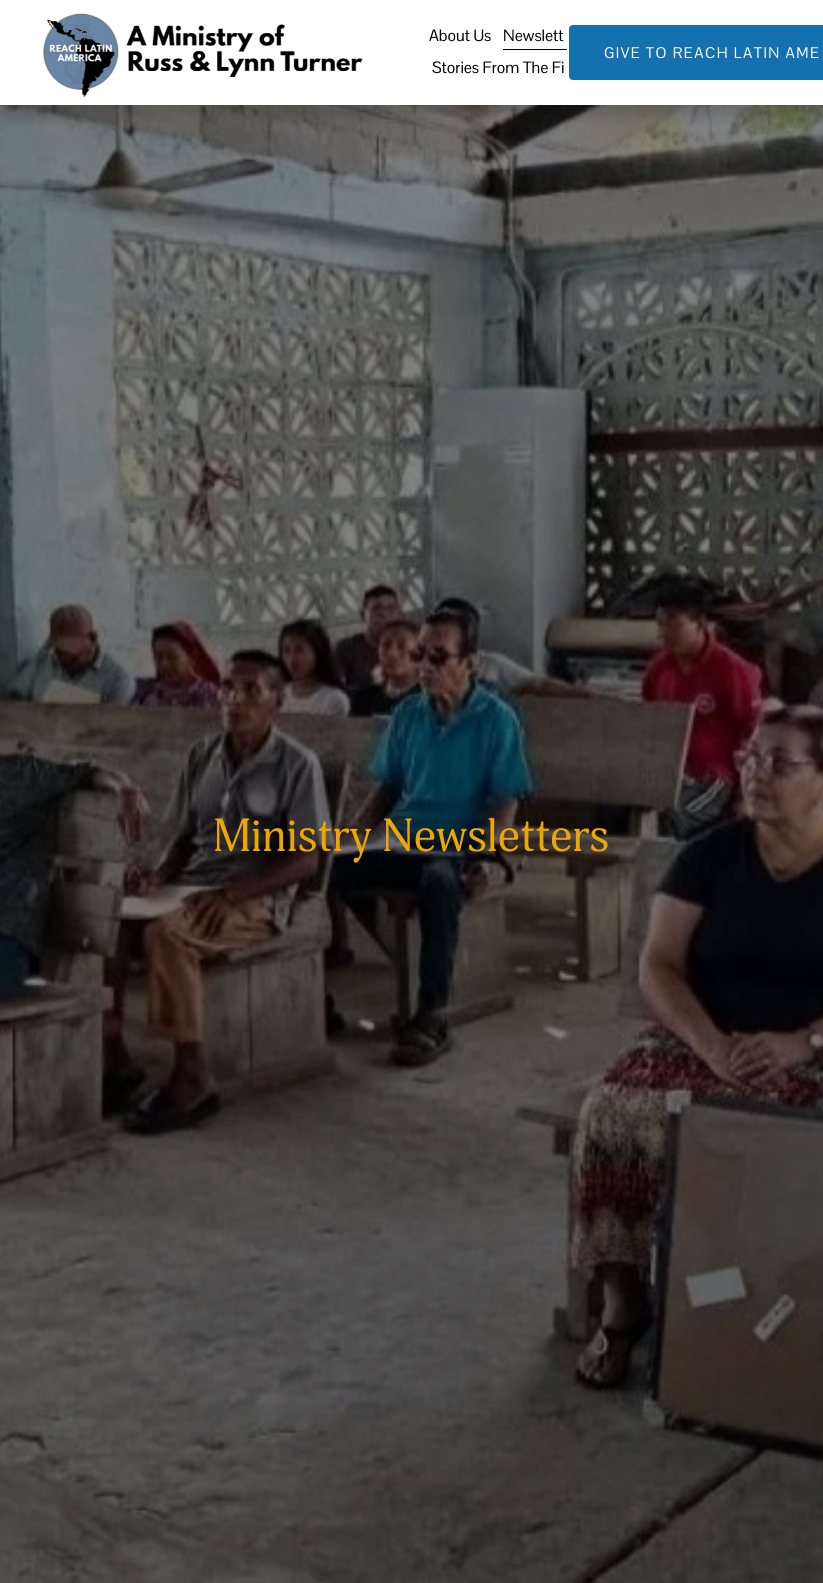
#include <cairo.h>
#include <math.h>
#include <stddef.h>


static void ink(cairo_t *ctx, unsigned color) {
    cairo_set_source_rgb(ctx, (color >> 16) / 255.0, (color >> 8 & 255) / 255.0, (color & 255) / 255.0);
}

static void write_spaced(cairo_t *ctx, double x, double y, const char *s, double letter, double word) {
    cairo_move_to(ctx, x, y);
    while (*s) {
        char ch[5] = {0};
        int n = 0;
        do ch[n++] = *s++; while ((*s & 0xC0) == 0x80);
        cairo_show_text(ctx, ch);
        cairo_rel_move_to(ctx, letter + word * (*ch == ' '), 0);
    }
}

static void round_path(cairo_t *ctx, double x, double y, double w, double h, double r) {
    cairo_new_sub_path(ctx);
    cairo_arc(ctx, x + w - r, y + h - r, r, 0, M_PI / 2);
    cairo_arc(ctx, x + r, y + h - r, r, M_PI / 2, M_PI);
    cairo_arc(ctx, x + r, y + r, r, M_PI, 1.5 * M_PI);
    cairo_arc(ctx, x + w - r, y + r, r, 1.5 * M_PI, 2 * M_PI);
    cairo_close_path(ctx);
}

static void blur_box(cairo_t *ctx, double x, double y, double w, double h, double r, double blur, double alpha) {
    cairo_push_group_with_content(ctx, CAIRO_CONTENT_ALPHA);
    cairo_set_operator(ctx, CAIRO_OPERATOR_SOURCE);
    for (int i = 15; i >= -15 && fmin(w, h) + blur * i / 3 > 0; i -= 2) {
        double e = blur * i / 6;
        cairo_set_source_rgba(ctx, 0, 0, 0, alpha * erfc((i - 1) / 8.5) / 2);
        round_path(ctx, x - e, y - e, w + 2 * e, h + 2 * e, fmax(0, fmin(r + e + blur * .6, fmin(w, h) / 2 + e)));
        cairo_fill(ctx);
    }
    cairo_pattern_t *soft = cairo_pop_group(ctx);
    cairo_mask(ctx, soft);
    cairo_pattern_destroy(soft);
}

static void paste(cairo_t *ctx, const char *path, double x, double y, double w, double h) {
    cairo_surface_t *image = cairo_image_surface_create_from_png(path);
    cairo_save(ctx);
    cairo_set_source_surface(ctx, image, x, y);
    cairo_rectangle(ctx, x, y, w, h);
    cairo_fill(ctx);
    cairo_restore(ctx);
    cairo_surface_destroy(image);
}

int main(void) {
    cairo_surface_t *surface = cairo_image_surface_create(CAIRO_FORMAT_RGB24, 823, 1583);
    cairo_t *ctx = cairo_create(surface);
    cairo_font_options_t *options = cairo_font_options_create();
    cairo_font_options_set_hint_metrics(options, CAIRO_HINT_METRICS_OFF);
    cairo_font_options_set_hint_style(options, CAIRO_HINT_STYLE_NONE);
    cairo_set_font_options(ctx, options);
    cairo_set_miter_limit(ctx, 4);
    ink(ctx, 0xFFFFFF);
    cairo_paint(ctx);
    paste(ctx, "media/2.png", 0, 105, 823, 1478);
    ink(ctx, 0x000000);
    blur_box(ctx, 0, 12, 823, 105, 0, 6, 0.15);
    ink(ctx, 0xFFFFFF);
    cairo_rectangle(ctx, 0, 3, 823, 102);
    cairo_fill(ctx);
    paste(ctx, "media/1.png", 43, 13, 320, 84);
    cairo_select_font_face(ctx, "Pontano Sans", CAIRO_FONT_SLANT_NORMAL, CAIRO_FONT_WEIGHT_NORMAL);
    cairo_set_font_size(ctx, 16);
    ink(ctx, 0x000000);
    cairo_move_to(ctx, 429, 41);
    cairo_show_text(ctx, "About Us");
    cairo_rectangle(ctx, 503, 49, 64, 1);
    cairo_fill(ctx);
    cairo_move_to(ctx, 503, 41);
    cairo_show_text(ctx, "Newslett");
    cairo_move_to(ctx, 432, 73);
    cairo_show_text(ctx, "Stories From The Fi");
    ink(ctx, 0x1470AF);
    round_path(ctx, 568, 24, 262, 57, 5);
    cairo_fill_preserve(ctx);
    ink(ctx, 0xFFFFFF);
    cairo_stroke(ctx);
    cairo_set_font_size(ctx, 15);
    write_spaced(ctx, 604, 58, "GIVE TO REACH LATIN AME", 1.5, 0);
    cairo_select_font_face(ctx, "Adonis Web", CAIRO_FONT_SLANT_NORMAL, CAIRO_FONT_WEIGHT_NORMAL);
    cairo_set_font_size(ctx, 45.6);
    ink(ctx, 0xEDA705);
    cairo_move_to(ctx, 213, 851);
    cairo_show_text(ctx, "Ministry Newsletters");
    cairo_surface_write_to_png(surface, "image.png");
    cairo_font_options_destroy(options);
    cairo_destroy(ctx);
    cairo_surface_destroy(surface);
    return 0;
}
